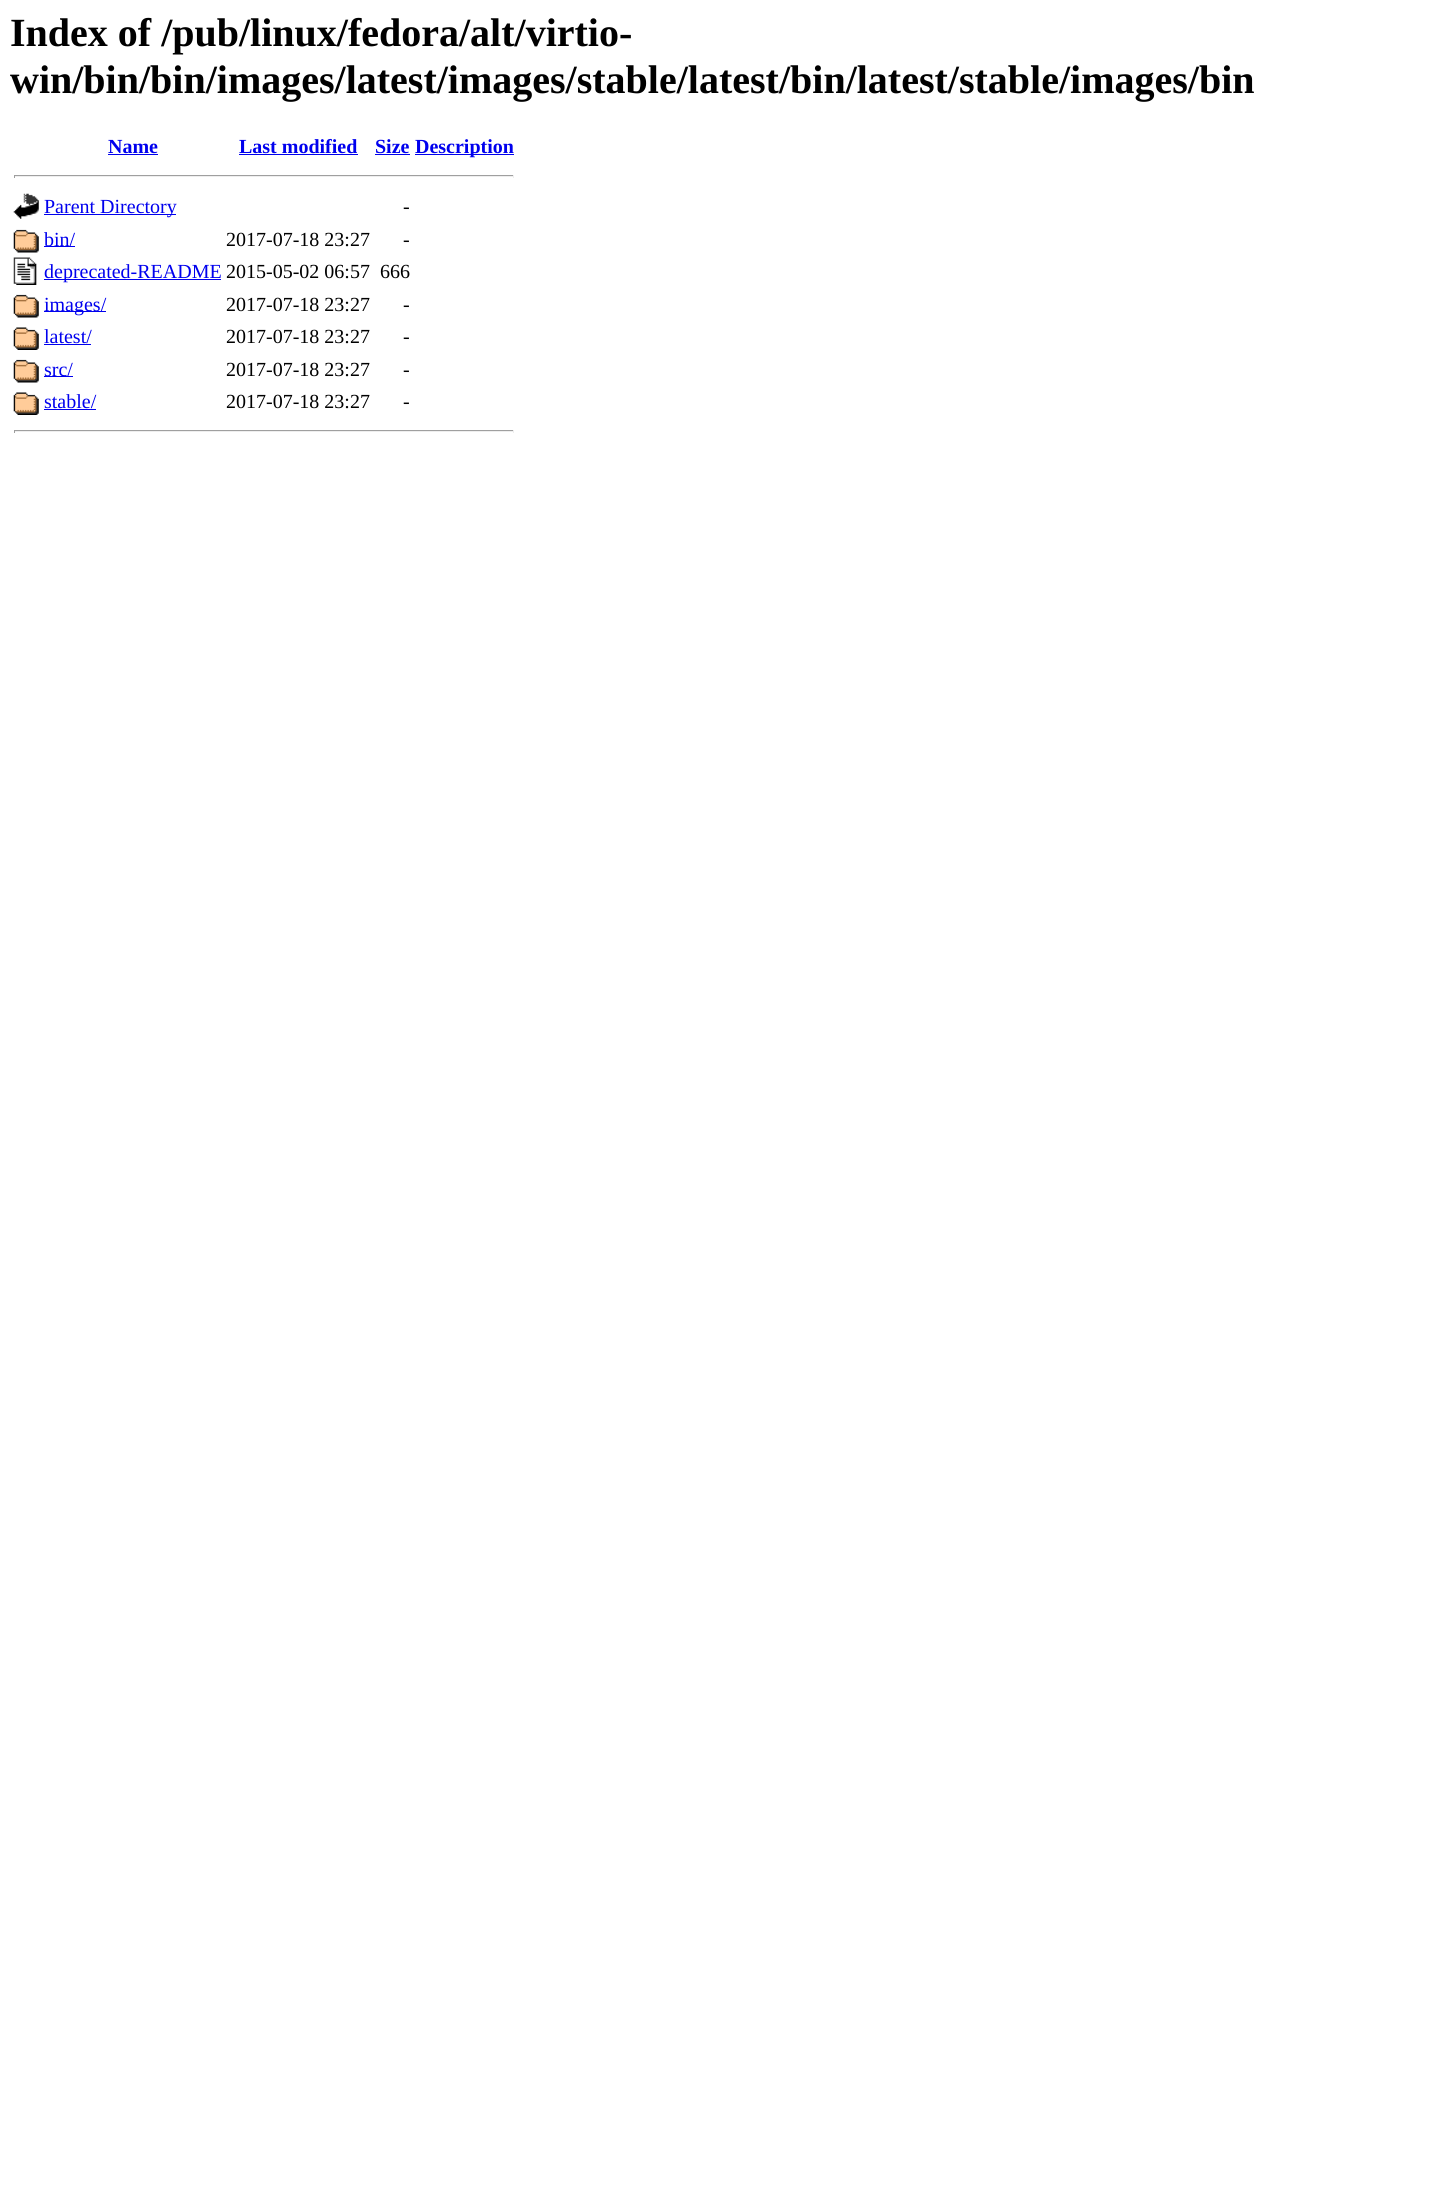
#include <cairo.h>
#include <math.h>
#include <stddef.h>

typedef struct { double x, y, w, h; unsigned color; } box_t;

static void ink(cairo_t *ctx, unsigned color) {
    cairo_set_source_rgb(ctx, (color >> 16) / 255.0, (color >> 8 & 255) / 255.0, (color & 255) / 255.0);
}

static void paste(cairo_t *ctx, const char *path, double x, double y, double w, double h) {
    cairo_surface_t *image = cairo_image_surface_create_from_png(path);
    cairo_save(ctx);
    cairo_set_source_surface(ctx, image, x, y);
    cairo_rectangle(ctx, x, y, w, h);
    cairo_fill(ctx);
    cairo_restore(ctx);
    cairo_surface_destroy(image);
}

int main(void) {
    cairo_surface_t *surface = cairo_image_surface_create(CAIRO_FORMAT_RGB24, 1450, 2205);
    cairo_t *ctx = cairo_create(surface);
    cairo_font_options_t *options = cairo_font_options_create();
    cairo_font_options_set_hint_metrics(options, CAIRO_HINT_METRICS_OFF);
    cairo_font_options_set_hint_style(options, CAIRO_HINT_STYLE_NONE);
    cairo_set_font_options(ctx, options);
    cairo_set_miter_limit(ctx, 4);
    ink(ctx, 0xFFFFFF);
    cairo_paint(ctx);
    cairo_select_font_face(ctx, "Liberation Serif", CAIRO_FONT_SLANT_NORMAL, CAIRO_FONT_WEIGHT_BOLD);
    cairo_set_font_size(ctx, 40);
    ink(ctx, 0x000000);
    cairo_move_to(ctx, 10, 46);
    cairo_show_text(ctx, "Index of /pub/linux/fedora/alt/virtio-");
    cairo_move_to(ctx, 10, 93);
    cairo_show_text(ctx, "win/bin/bin/images/latest/images/stable/latest/bin/latest/stable/images/bin");
    cairo_set_font_size(ctx, 20);
    ink(ctx, 0x0000EE);
    cairo_move_to(ctx, 108, 153);
    cairo_show_text(ctx, "Name");
    cairo_rectangle(ctx, 108, 154, 50, 1);
    cairo_fill(ctx);
    cairo_move_to(ctx, 239, 153);
    cairo_show_text(ctx, "Last modified");
    cairo_rectangle(ctx, 239, 154, 119, 1);
    cairo_fill(ctx);
    cairo_move_to(ctx, 375, 153);
    cairo_show_text(ctx, "Size");
    cairo_rectangle(ctx, 375, 154, 35, 1);
    cairo_fill(ctx);
    cairo_rectangle(ctx, 415, 154, 99, 1);
    cairo_fill(ctx);
    cairo_move_to(ctx, 415, 153);
    cairo_show_text(ctx, "Description");
    {
        static const box_t items[] = {
            {14, 175, 500, 1, 0x9F9F9F},
            {513, 175, 1, 3, 0xEEEEEE},
            {14, 176, 500, 1, 0xEEEEEE},
            {14, 175, 1, 3, 0x9F9F9F},
        };
        for (size_t i = 0; i < sizeof items / sizeof *items; i++) {
            ink(ctx, items[i].color);
            cairo_rectangle(ctx, items[i].x, items[i].y, items[i].w, items[i].h);
            cairo_fill(ctx);
        }
    }
    paste(ctx, "media/1.png", 13, 193, 26, 26);
    ink(ctx, 0x0000EE);
    cairo_rectangle(ctx, 44, 214, 132, 1);
    cairo_fill(ctx);
    cairo_select_font_face(ctx, "Liberation Serif", CAIRO_FONT_SLANT_NORMAL, CAIRO_FONT_WEIGHT_NORMAL);
    cairo_move_to(ctx, 44, 213);
    cairo_show_text(ctx, "Parent Directory");
    ink(ctx, 0x000000);
    cairo_move_to(ctx, 403, 213);
    cairo_show_text(ctx, "-");
    paste(ctx, "media/2.png", 13, 229, 26, 24);
    ink(ctx, 0x0000EE);
    cairo_rectangle(ctx, 44, 246, 31, 1);
    cairo_fill(ctx);
    cairo_move_to(ctx, 44, 246);
    cairo_show_text(ctx, "bin/");
    ink(ctx, 0x000000);
    cairo_move_to(ctx, 226, 246);
    cairo_show_text(ctx, "2017-07-18 23:27");
    cairo_move_to(ctx, 403, 246);
    cairo_show_text(ctx, "-");
    paste(ctx, "media/3.png", 13, 257, 24, 28);
    ink(ctx, 0x0000EE);
    cairo_rectangle(ctx, 44, 279, 177, 1);
    cairo_fill(ctx);
    cairo_move_to(ctx, 44, 278);
    cairo_show_text(ctx, "deprecated-README");
    ink(ctx, 0x000000);
    cairo_move_to(ctx, 226, 278);
    cairo_show_text(ctx, "2015-05-02 06:57");
    cairo_move_to(ctx, 380, 278);
    cairo_show_text(ctx, "666");
    paste(ctx, "media/4.png", 13, 294, 26, 24);
    ink(ctx, 0x0000EE);
    cairo_rectangle(ctx, 44, 311, 62, 1);
    cairo_fill(ctx);
    cairo_move_to(ctx, 44, 311);
    cairo_show_text(ctx, "images/");
    ink(ctx, 0x000000);
    cairo_move_to(ctx, 226, 311);
    cairo_show_text(ctx, "2017-07-18 23:27");
    cairo_move_to(ctx, 403, 311);
    cairo_show_text(ctx, "-");
    paste(ctx, "media/5.png", 13, 327, 26, 23);
    ink(ctx, 0x0000EE);
    cairo_move_to(ctx, 44, 343);
    cairo_show_text(ctx, "latest/");
    cairo_rectangle(ctx, 44, 344, 47, 1);
    cairo_fill(ctx);
    ink(ctx, 0x000000);
    cairo_move_to(ctx, 226, 343);
    cairo_show_text(ctx, "2017-07-18 23:27");
    cairo_move_to(ctx, 403, 343);
    cairo_show_text(ctx, "-");
    paste(ctx, "media/2.png", 13, 359, 26, 24);
    ink(ctx, 0x0000EE);
    cairo_rectangle(ctx, 44, 376, 29, 1);
    cairo_fill(ctx);
    cairo_move_to(ctx, 44, 376);
    cairo_show_text(ctx, "src/");
    ink(ctx, 0x000000);
    cairo_move_to(ctx, 226, 376);
    cairo_show_text(ctx, "2017-07-18 23:27");
    cairo_move_to(ctx, 403, 376);
    cairo_show_text(ctx, "-");
    paste(ctx, "media/5.png", 13, 392, 26, 23);
    ink(ctx, 0x0000EE);
    cairo_move_to(ctx, 44, 408);
    cairo_show_text(ctx, "stable/");
    cairo_rectangle(ctx, 44, 409, 52, 1);
    cairo_fill(ctx);
    ink(ctx, 0x000000);
    cairo_move_to(ctx, 226, 408);
    cairo_show_text(ctx, "2017-07-18 23:27");
    cairo_move_to(ctx, 403, 408);
    cairo_show_text(ctx, "-");
    {
        static const box_t items[] = {
            {14, 430, 500, 1, 0x9F9F9F},
            {513, 430, 1, 3, 0xEEEEEE},
            {14, 431, 500, 1, 0xEEEEEE},
            {14, 430, 1, 3, 0x9F9F9F},
        };
        for (size_t i = 0; i < sizeof items / sizeof *items; i++) {
            ink(ctx, items[i].color);
            cairo_rectangle(ctx, items[i].x, items[i].y, items[i].w, items[i].h);
            cairo_fill(ctx);
        }
    }
    cairo_surface_write_to_png(surface, "image.png");
    cairo_font_options_destroy(options);
    cairo_destroy(ctx);
    cairo_surface_destroy(surface);
    return 0;
}
